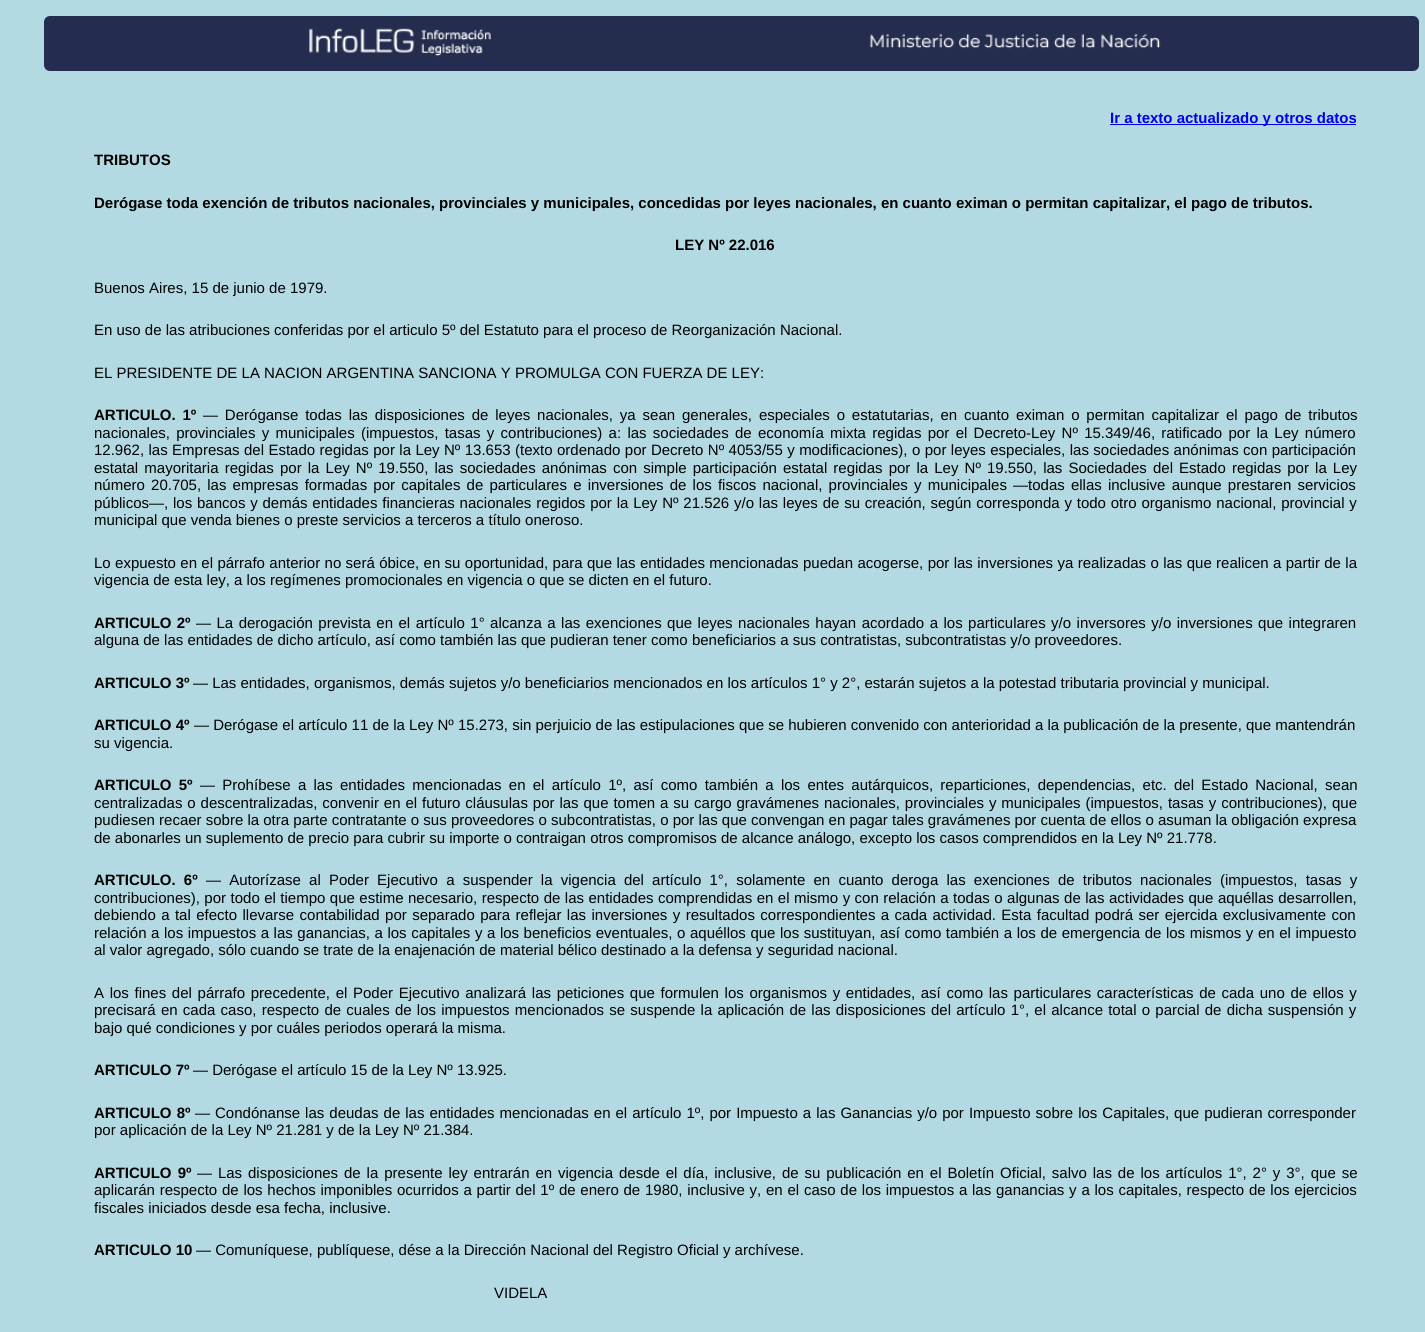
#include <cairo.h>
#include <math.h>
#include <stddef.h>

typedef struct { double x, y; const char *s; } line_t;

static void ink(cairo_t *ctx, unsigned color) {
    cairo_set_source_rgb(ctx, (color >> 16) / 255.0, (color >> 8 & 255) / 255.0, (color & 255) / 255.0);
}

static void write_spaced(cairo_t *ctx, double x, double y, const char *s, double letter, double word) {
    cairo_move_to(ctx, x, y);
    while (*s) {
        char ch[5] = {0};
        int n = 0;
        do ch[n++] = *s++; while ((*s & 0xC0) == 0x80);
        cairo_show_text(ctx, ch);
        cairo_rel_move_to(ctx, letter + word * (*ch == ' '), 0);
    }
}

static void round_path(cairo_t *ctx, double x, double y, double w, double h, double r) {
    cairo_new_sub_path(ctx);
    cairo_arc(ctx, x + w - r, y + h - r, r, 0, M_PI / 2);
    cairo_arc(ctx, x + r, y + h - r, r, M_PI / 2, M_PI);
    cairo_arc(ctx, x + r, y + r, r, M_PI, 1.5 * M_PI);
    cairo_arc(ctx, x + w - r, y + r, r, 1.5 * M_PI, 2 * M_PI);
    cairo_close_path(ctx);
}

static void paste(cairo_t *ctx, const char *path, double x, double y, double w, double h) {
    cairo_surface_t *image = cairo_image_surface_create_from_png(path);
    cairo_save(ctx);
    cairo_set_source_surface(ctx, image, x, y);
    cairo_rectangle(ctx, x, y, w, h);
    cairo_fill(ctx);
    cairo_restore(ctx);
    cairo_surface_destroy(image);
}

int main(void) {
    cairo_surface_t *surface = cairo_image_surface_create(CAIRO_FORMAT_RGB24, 1425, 1332);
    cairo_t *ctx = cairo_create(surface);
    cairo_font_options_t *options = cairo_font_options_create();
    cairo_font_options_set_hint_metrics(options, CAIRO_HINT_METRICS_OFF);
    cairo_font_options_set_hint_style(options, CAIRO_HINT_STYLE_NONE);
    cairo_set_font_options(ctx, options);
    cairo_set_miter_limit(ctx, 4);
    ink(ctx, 0xB3D9E2);
    cairo_paint(ctx);
    ink(ctx, 0x242C4F);
    round_path(ctx, 44, 16, 1375, 55, 6);
    cairo_fill(ctx);
    paste(ctx, "media/1.png", 309, 28, 852, 29);
    ink(ctx, 0x0000EE);
    cairo_rectangle(ctx, 1110, 124, 246, 1);
    cairo_fill(ctx);
    cairo_select_font_face(ctx, "Liberation Sans", CAIRO_FONT_SLANT_NORMAL, CAIRO_FONT_WEIGHT_BOLD);
    cairo_set_font_size(ctx, 15);
    cairo_move_to(ctx, 1110, 123);
    cairo_show_text(ctx, "Ir a texto actualizado y otros datos");
    ink(ctx, 0x000000);
    {
        static const line_t items[] = {
            {94, 165, "TRIBUTOS"},
            {94, 208, "Derógase toda exención de tributos nacionales, provinciales y municipales, concedidas por leyes nacionales, en cuanto eximan o permitan capitalizar, el pago de tributos."},
            {675, 250, "LEY Nº 22.016"},
        };
        for (size_t i = 0; i < sizeof items / sizeof *items; i++) {
            cairo_move_to(ctx, items[i].x, items[i].y);
            cairo_show_text(ctx, items[i].s);
        }
    }
    cairo_select_font_face(ctx, "Liberation Sans", CAIRO_FONT_SLANT_NORMAL, CAIRO_FONT_WEIGHT_NORMAL);
    {
        static const line_t items[] = {
            {94, 293, "Buenos Aires, 15 de junio de 1979."},
            {94, 335, "En uso de las atribuciones conferidas por el articulo 5º del Estatuto para el proceso de Reorganización Nacional."},
            {94, 378, "EL PRESIDENTE DE LA NACION ARGENTINA SANCIONA Y PROMULGA CON FUERZA DE LEY:"},
        };
        for (size_t i = 0; i < sizeof items / sizeof *items; i++) {
            cairo_move_to(ctx, items[i].x, items[i].y);
            cairo_show_text(ctx, items[i].s);
        }
    }
    cairo_select_font_face(ctx, "Liberation Sans", CAIRO_FONT_SLANT_NORMAL, CAIRO_FONT_WEIGHT_BOLD);
    write_spaced(ctx, 94, 420, "ARTICULO. 1º", 0, 2.7);
    cairo_select_font_face(ctx, "Liberation Sans", CAIRO_FONT_SLANT_NORMAL, CAIRO_FONT_WEIGHT_NORMAL);
    write_spaced(ctx, 203, 420, "— Deróganse todas las disposiciones de leyes nacionales, ya sean generales, especiales o estatutarias, en cuanto eximan o permitan capitalizar el pago de tributos", 0, 2.7);
    write_spaced(ctx, 94, 438, "nacionales, provinciales y municipales (impuestos, tasas y contribuciones) a: las sociedades de economía mixta regidas por el Decreto-Ley Nº 15.349/46, ratificado por la Ley número", 0, 2.1);
    write_spaced(ctx, 94, 455, "12.962, las Empresas del Estado regidas por la Ley Nº 13.653 (texto ordenado por Decreto Nº 4053/55 y modificaciones), o por leyes especiales, las sociedades anónimas con participación", 0, 0.25);
    write_spaced(ctx, 94, 473, "estatal mayoritaria regidas por la Ley Nº 19.550, las sociedades anónimas con simple participación estatal regidas por la Ley Nº 19.550, las Sociedades del Estado regidas por la Ley", 0, 1.95);
    write_spaced(ctx, 94, 490, "número 20.705, las empresas formadas por capitales de particulares e inversiones de los fiscos nacional, provinciales y municipales —todas ellas inclusive aunque prestaren servicios", 0, 2);
    write_spaced(ctx, 94, 508, "públicos—, los bancos y demás entidades financieras nacionales regidos por la Ley Nº 21.526 y/o las leyes de su creación, según corresponda y todo otro organismo nacional, provincial y", 0, 0.65);
    cairo_move_to(ctx, 94, 525);
    cairo_show_text(ctx, "municipal que venda bienes o preste servicios a terceros a título oneroso.");
    write_spaced(ctx, 94, 568, "Lo expuesto en el párrafo anterior no será óbice, en su oportunidad, para que las entidades mencionadas puedan acogerse, por las inversiones ya realizadas o las que realicen a partir de la", 0, 0.2);
    cairo_move_to(ctx, 94, 585);
    cairo_show_text(ctx, "vigencia de esta ley, a los regímenes promocionales en vigencia o que se dicten en el futuro.");
    cairo_select_font_face(ctx, "Liberation Sans", CAIRO_FONT_SLANT_NORMAL, CAIRO_FONT_WEIGHT_BOLD);
    write_spaced(ctx, 94, 628, "ARTICULO 2º", 0, 1);
    cairo_select_font_face(ctx, "Liberation Sans", CAIRO_FONT_SLANT_NORMAL, CAIRO_FONT_WEIGHT_NORMAL);
    write_spaced(ctx, 196, 628, "— La derogación prevista en el artículo 1° alcanza a las exenciones que leyes nacionales hayan acordado a los particulares y/o inversores y/o inversiones que integraren", 0, 1.3);
    cairo_move_to(ctx, 94, 645);
    cairo_show_text(ctx, "alguna de las entidades de dicho artículo, así como también las que pudieran tener como beneficiarios a sus contratistas, subcontratistas y/o proveedores.");
    cairo_select_font_face(ctx, "Liberation Sans", CAIRO_FONT_SLANT_NORMAL, CAIRO_FONT_WEIGHT_BOLD);
    cairo_move_to(ctx, 94, 688);
    cairo_show_text(ctx, "ARTICULO 3º");
    cairo_select_font_face(ctx, "Liberation Sans", CAIRO_FONT_SLANT_NORMAL, CAIRO_FONT_WEIGHT_NORMAL);
    cairo_move_to(ctx, 193, 688);
    cairo_show_text(ctx, "— Las entidades, organismos, demás sujetos y/o beneficiarios mencionados en los artículos 1° y 2°, estarán sujetos a la potestad tributaria provincial y municipal.");
    cairo_select_font_face(ctx, "Liberation Sans", CAIRO_FONT_SLANT_NORMAL, CAIRO_FONT_WEIGHT_BOLD);
    cairo_move_to(ctx, 94, 730);
    cairo_show_text(ctx, "ARTICULO 4º");
    cairo_select_font_face(ctx, "Liberation Sans", CAIRO_FONT_SLANT_NORMAL, CAIRO_FONT_WEIGHT_NORMAL);
    cairo_move_to(ctx, 194, 730);
    cairo_show_text(ctx, "— Derógase el artículo 11 de la Ley Nº 15.273, sin perjuicio de las estipulaciones que se hubieren convenido con anterioridad a la publicación de la presente, que mantendrán");
    cairo_move_to(ctx, 94, 748);
    cairo_show_text(ctx, "su vigencia.");
    cairo_select_font_face(ctx, "Liberation Sans", CAIRO_FONT_SLANT_NORMAL, CAIRO_FONT_WEIGHT_BOLD);
    write_spaced(ctx, 94, 790, "ARTICULO 5º", 0, 3.1);
    cairo_select_font_face(ctx, "Liberation Sans", CAIRO_FONT_SLANT_NORMAL, CAIRO_FONT_WEIGHT_NORMAL);
    write_spaced(ctx, 200, 790, "— Prohíbese a las entidades mencionadas en el artículo 1º, así como también a los entes autárquicos, reparticiones, dependencias, etc. del Estado Nacional, sean", 0, 3.1);
    write_spaced(ctx, 94, 808, "centralizadas o descentralizadas, convenir en el futuro cláusulas por las que tomen a su cargo gravámenes nacionales, provinciales y municipales (impuestos, tasas y contribuciones), que", 0, 0.75);
    cairo_move_to(ctx, 94, 825);
    cairo_show_text(ctx, "pudiesen recaer sobre la otra parte contratante o sus proveedores o subcontratistas, o por las que convengan en pagar tales gravámenes por cuenta de ellos o asuman la obligación expresa");
    cairo_move_to(ctx, 94, 843);
    cairo_show_text(ctx, "de abonarles un suplemento de precio para cubrir su importe o contraigan otros compromisos de alcance análogo, excepto los casos comprendidos en la Ley Nº 21.778.");
    cairo_select_font_face(ctx, "Liberation Sans", CAIRO_FONT_SLANT_NORMAL, CAIRO_FONT_WEIGHT_BOLD);
    write_spaced(ctx, 94, 885, "ARTICULO. 6º", 0, 4);
    cairo_select_font_face(ctx, "Liberation Sans", CAIRO_FONT_SLANT_NORMAL, CAIRO_FONT_WEIGHT_NORMAL);
    write_spaced(ctx, 206, 885, "— Autorízase al Poder Ejecutivo a suspender la vigencia del artículo 1°, solamente en cuanto deroga las exenciones de tributos nacionales (impuestos, tasas y", 0, 4);
    write_spaced(ctx, 94, 903, "contribuciones), por todo el tiempo que estime necesario, respecto de las entidades comprendidas en el mismo y con relación a todas o algunas de las actividades que aquéllas desarrollen,", 0, 0.3);
    write_spaced(ctx, 94, 920, "debiendo a tal efecto llevarse contabilidad por separado para reflejar las inversiones y resultados correspondientes a cada actividad. Esta facultad podrá ser ejercida exclusivamente con", 0, 1.25);
    write_spaced(ctx, 94, 938, "relación a los impuestos a las ganancias, a los capitales y a los beneficios eventuales, o aquéllos que los sustituyan, así como también a los de emergencia de los mismos y en el impuesto", 0, 0.4);
    cairo_move_to(ctx, 94, 955);
    cairo_show_text(ctx, "al valor agregado, sólo cuando se trate de la enajenación de material bélico destinado a la defensa y seguridad nacional.");
    write_spaced(ctx, 94, 998, "A los fines del párrafo precedente, el Poder Ejecutivo analizará las peticiones que formulen los organismos y entidades, así como las particulares características de cada uno de ellos y", 0, 1.5);
    write_spaced(ctx, 94, 1015, "precisará en cada caso, respecto de cuales de los impuestos mencionados se suspende la aplicación de las disposiciones del artículo 1°, el alcance total o parcial de dicha suspensión y", 0, 1.05);
    cairo_move_to(ctx, 94, 1033);
    cairo_show_text(ctx, "bajo qué condiciones y por cuáles periodos operará la misma.");
    cairo_select_font_face(ctx, "Liberation Sans", CAIRO_FONT_SLANT_NORMAL, CAIRO_FONT_WEIGHT_BOLD);
    cairo_move_to(ctx, 94, 1075);
    cairo_show_text(ctx, "ARTICULO 7º");
    cairo_select_font_face(ctx, "Liberation Sans", CAIRO_FONT_SLANT_NORMAL, CAIRO_FONT_WEIGHT_NORMAL);
    cairo_move_to(ctx, 193, 1075);
    cairo_show_text(ctx, "— Derógase el artículo 15 de la Ley Nº 13.925.");
    cairo_select_font_face(ctx, "Liberation Sans", CAIRO_FONT_SLANT_NORMAL, CAIRO_FONT_WEIGHT_BOLD);
    write_spaced(ctx, 94, 1118, "ARTICULO 8º", 0, 1);
    cairo_select_font_face(ctx, "Liberation Sans", CAIRO_FONT_SLANT_NORMAL, CAIRO_FONT_WEIGHT_NORMAL);
    write_spaced(ctx, 195, 1118, "— Condónanse las deudas de las entidades mencionadas en el artículo 1º, por Impuesto a las Ganancias y/o por Impuesto sobre los Capitales, que pudieran corresponder", 0, 0.85);
    cairo_move_to(ctx, 94, 1135);
    cairo_show_text(ctx, "por aplicación de la Ley Nº 21.281 y de la Ley Nº 21.384.");
    cairo_select_font_face(ctx, "Liberation Sans", CAIRO_FONT_SLANT_NORMAL, CAIRO_FONT_WEIGHT_BOLD);
    write_spaced(ctx, 94, 1178, "ARTICULO 9º", 0, 2);
    cairo_select_font_face(ctx, "Liberation Sans", CAIRO_FONT_SLANT_NORMAL, CAIRO_FONT_WEIGHT_NORMAL);
    write_spaced(ctx, 197, 1178, "— Las disposiciones de la presente ley entrarán en vigencia desde el día, inclusive, de su publicación en el Boletín Oficial, salvo las de los artículos 1°, 2° y 3°, que se", 0, 1.75);
    write_spaced(ctx, 94, 1195, "aplicarán respecto de los hechos imponibles ocurridos a partir del 1º de enero de 1980, inclusive y, en el caso de los impuestos a las ganancias y a los capitales, respecto de los ejercicios", 0, 0.6);
    cairo_move_to(ctx, 94, 1213);
    cairo_show_text(ctx, "fiscales iniciados desde esa fecha, inclusive.");
    cairo_select_font_face(ctx, "Liberation Sans", CAIRO_FONT_SLANT_NORMAL, CAIRO_FONT_WEIGHT_BOLD);
    cairo_move_to(ctx, 94, 1255);
    cairo_show_text(ctx, "ARTICULO 10");
    cairo_select_font_face(ctx, "Liberation Sans", CAIRO_FONT_SLANT_NORMAL, CAIRO_FONT_WEIGHT_NORMAL);
    cairo_move_to(ctx, 196, 1255);
    cairo_show_text(ctx, "— Comuníquese, publíquese, dése a la Dirección Nacional del Registro Oficial y archívese.");
    cairo_move_to(ctx, 494, 1298);
    cairo_show_text(ctx, "VIDELA");
    cairo_surface_write_to_png(surface, "image.png");
    cairo_font_options_destroy(options);
    cairo_destroy(ctx);
    cairo_surface_destroy(surface);
    return 0;
}
